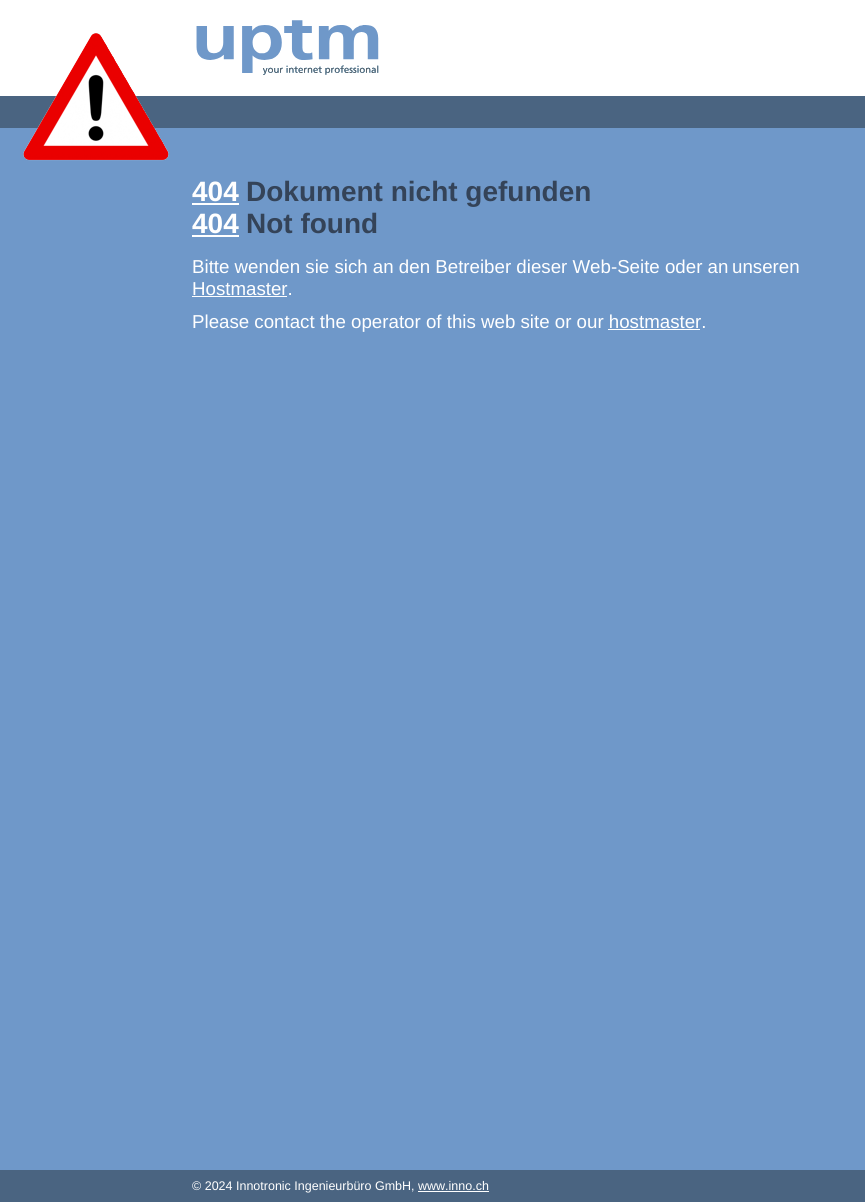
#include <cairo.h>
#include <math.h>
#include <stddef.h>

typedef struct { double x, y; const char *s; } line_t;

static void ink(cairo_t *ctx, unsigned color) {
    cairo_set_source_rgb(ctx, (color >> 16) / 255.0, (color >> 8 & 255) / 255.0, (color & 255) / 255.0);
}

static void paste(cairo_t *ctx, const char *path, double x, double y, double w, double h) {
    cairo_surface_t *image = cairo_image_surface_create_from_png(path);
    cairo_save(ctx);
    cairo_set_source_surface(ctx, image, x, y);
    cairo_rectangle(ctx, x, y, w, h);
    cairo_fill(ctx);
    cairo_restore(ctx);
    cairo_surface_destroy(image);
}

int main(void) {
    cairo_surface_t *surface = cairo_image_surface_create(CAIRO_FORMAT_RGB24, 865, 1202);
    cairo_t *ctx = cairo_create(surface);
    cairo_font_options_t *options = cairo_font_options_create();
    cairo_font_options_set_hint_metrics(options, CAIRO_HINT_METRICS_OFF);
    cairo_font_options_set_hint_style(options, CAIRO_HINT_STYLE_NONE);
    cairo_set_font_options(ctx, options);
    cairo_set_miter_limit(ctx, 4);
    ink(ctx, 0xFFFFFF);
    cairo_paint(ctx);
    paste(ctx, "media/1.png", 196, 20, 183, 55);
    ink(ctx, 0x4A6481);
    cairo_rectangle(ctx, 0, 96, 865, 32);
    cairo_fill(ctx);
    ink(ctx, 0x6F98C9);
    cairo_rectangle(ctx, 0, 128, 865, 1042);
    cairo_fill(ctx);
    paste(ctx, "media/2.png", 23, 33, 146, 128);
    cairo_select_font_face(ctx, "Liberation Sans", CAIRO_FONT_SLANT_NORMAL, CAIRO_FONT_WEIGHT_BOLD);
    cairo_set_font_size(ctx, 28);
    ink(ctx, 0xFFFFFF);
    cairo_move_to(ctx, 192, 201);
    cairo_show_text(ctx, "404");
    cairo_rectangle(ctx, 192, 203, 47, 2);
    cairo_fill(ctx);
    ink(ctx, 0x344358);
    cairo_move_to(ctx, 246, 201);
    cairo_show_text(ctx, "Dokument nicht gefunden");
    ink(ctx, 0xFFFFFF);
    cairo_move_to(ctx, 192, 233);
    cairo_show_text(ctx, "404");
    cairo_rectangle(ctx, 192, 235, 47, 2);
    cairo_fill(ctx);
    ink(ctx, 0x344358);
    cairo_move_to(ctx, 246, 233);
    cairo_show_text(ctx, "Not found");
    cairo_select_font_face(ctx, "Liberation Sans", CAIRO_FONT_SLANT_NORMAL, CAIRO_FONT_WEIGHT_NORMAL);
    cairo_set_font_size(ctx, 18.7);
    ink(ctx, 0xFFFFFF);
    {
        static const line_t items[] = {
            {192, 273, "Bitte wenden sie sich an den Betreiber dieser Web-Seite oder an"},
            {732, 273, "unseren"},
            {192, 295, "Hostmaster."},
        };
        for (size_t i = 0; i < sizeof items / sizeof *items; i++) {
            cairo_move_to(ctx, items[i].x, items[i].y);
            cairo_show_text(ctx, items[i].s);
        }
    }
    cairo_rectangle(ctx, 192, 296, 95, 1);
    cairo_fill(ctx);
    cairo_move_to(ctx, 192, 328);
    cairo_show_text(ctx, "Please contact the operator of this web site or our hostmaster.");
    cairo_rectangle(ctx, 608, 329, 92, 1);
    cairo_fill(ctx);
    ink(ctx, 0x4A6481);
    cairo_rectangle(ctx, 0, 1170, 865, 32);
    cairo_fill(ctx);
    cairo_set_font_size(ctx, 12.5);
    ink(ctx, 0xFFFFFF);
    cairo_move_to(ctx, 192, 1190);
    cairo_show_text(ctx, "© 2024 Innotronic Ingenieurbüro GmbH, www.inno.ch");
    cairo_rectangle(ctx, 418, 1191, 71, 1);
    cairo_fill(ctx);
    cairo_surface_write_to_png(surface, "image.png");
    cairo_font_options_destroy(options);
    cairo_destroy(ctx);
    cairo_surface_destroy(surface);
    return 0;
}
